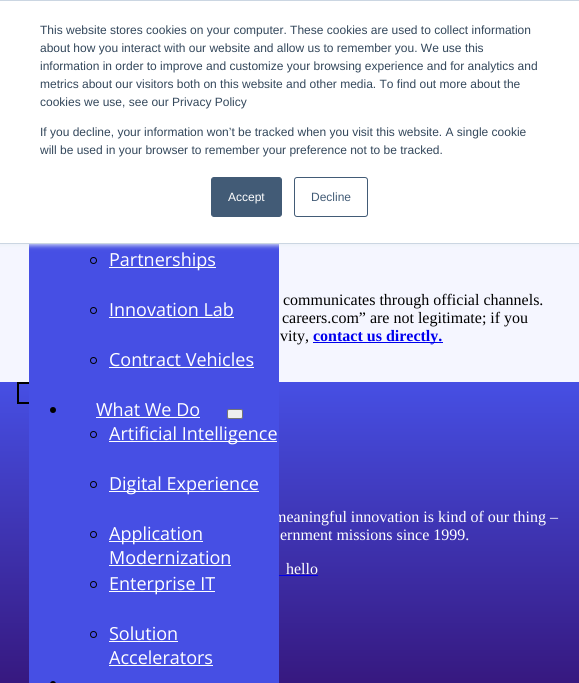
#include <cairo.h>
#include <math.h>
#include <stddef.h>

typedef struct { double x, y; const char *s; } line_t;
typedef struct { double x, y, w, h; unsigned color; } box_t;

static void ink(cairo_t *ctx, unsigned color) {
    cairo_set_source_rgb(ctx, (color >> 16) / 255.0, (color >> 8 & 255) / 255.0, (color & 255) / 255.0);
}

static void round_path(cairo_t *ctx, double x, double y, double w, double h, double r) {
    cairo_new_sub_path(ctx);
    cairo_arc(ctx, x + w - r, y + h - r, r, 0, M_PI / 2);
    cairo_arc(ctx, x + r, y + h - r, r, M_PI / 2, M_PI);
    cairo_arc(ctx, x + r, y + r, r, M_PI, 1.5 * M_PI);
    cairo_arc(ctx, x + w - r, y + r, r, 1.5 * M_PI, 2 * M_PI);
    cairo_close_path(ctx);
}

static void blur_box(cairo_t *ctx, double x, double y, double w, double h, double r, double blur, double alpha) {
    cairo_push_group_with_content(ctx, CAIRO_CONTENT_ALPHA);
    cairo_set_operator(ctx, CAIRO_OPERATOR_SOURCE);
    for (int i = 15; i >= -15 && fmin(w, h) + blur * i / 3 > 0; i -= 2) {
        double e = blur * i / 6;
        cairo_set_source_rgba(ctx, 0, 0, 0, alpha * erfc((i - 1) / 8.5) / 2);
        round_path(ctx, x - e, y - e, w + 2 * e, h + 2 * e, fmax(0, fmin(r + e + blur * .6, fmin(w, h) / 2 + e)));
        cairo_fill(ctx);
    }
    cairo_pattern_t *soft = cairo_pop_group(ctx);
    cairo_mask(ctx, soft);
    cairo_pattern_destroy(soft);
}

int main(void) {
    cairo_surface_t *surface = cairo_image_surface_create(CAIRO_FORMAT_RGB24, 579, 683);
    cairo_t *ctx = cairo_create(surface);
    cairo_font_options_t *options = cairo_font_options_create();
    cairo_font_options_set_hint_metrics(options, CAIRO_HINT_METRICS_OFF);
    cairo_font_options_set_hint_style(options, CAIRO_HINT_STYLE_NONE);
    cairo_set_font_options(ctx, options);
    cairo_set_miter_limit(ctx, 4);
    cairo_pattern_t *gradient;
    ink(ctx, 0xF5F6FF);
    cairo_paint(ctx);
    gradient = cairo_pattern_create_linear(290, 382, 290, 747);
    cairo_pattern_add_color_stop_rgba(gradient, 0, 0.275, 0.31, 0.894, 1);
    cairo_pattern_add_color_stop_rgba(gradient, 1, 0.2, 0.051, 0.416, 1);
    cairo_set_source(ctx, gradient);
    cairo_pattern_destroy(gradient);
    cairo_rectangle(ctx, 0, 382, 579, 301);
    cairo_fill(ctx);
    cairo_rectangle(ctx, 18, 383, 115, 20);
    ink(ctx, 0x000000);
    cairo_stroke(ctx);
    cairo_select_font_face(ctx, "Liberation Serif", CAIRO_FONT_SLANT_NORMAL, CAIRO_FONT_WEIGHT_NORMAL);
    cairo_set_font_size(ctx, 16);
    ink(ctx, 0xFFFFFF);
    cairo_move_to(ctx, 274, 522);
    cairo_show_text(ctx, "meaningful innovation is kind of our thing –");
    ink(ctx, 0x464FE4);
    cairo_rectangle(ctx, 29, 244, 250, 439);
    cairo_fill(ctx);
    ink(ctx, 0xEAF0F6);
    blur_box(ctx, 0, 1, 579, 244, 0, 2.5, 1);
    {
        static const box_t items[] = {
            {0, 1, 579, 242, 0xFFFFFF},
            {0, 0, 579, 1, 0xCBD6E2},
            {0, 243, 579, 1, 0xCBD6E2},
        };
        for (size_t i = 0; i < sizeof items / sizeof *items; i++) {
            ink(ctx, items[i].color);
            cairo_rectangle(ctx, items[i].x, items[i].y, items[i].w, items[i].h);
            cairo_fill(ctx);
        }
    }
    cairo_select_font_face(ctx, "Liberation Sans", CAIRO_FONT_SLANT_NORMAL, CAIRO_FONT_WEIGHT_NORMAL);
    cairo_set_font_size(ctx, 12);
    ink(ctx, 0x33475B);
    {
        static const line_t items[] = {
            {40, 34, "This website stores cookies on your computer. These cookies are used to collect information"},
            {40, 52, "about how you interact with our website and allow us to remember you. We use this"},
            {40, 70, "information in order to improve and customize your browsing experience and for analytics and"},
            {40, 88, "metrics about our visitors both on this website and other media. To find out more about the"},
            {40, 106, "cookies we use, see our Privacy Policy"},
            {40, 136, "If you decline, your information won’t be tracked when you visit this website. A single cookie"},
            {40, 154, "will be used in your browser to remember your preference not to be tracked."},
        };
        for (size_t i = 0; i < sizeof items / sizeof *items; i++) {
            cairo_move_to(ctx, items[i].x, items[i].y);
            cairo_show_text(ctx, items[i].s);
        }
    }
    ink(ctx, 0x425B76);
    round_path(ctx, 211.5, 177.5, 70, 39, 2.5);
    cairo_fill_preserve(ctx);
    cairo_set_line_width(ctx, 1);
    cairo_stroke(ctx);
    ink(ctx, 0xFFFFFF);
    cairo_move_to(ctx, 228, 201);
    cairo_show_text(ctx, "Accept");
    round_path(ctx, 294.5, 177.5, 73, 39, 2.5);
    ink(ctx, 0x425B76);
    cairo_stroke(ctx);
    cairo_move_to(ctx, 311, 201);
    cairo_show_text(ctx, "Decline");
    cairo_new_path(ctx);
    cairo_arc(ctx, 93.5, 260.5, 3, 0, 2 * M_PI);
    ink(ctx, 0x000000);
    cairo_stroke(ctx);
    ink(ctx, 0xFFFFFF);
    cairo_rectangle(ctx, 109, 267, 107, 1);
    cairo_fill(ctx);
    cairo_select_font_face(ctx, "Open Sans", CAIRO_FONT_SLANT_NORMAL, CAIRO_FONT_WEIGHT_NORMAL);
    cairo_set_font_size(ctx, 18);
    cairo_move_to(ctx, 109, 266);
    cairo_show_text(ctx, "Partnerships");
    cairo_new_path(ctx);
    cairo_arc(ctx, 93.5, 310.5, 3, 0, 2 * M_PI);
    ink(ctx, 0x000000);
    cairo_stroke(ctx);
    ink(ctx, 0xFFFFFF);
    cairo_move_to(ctx, 109, 316);
    cairo_show_text(ctx, "Innovation Lab");
    cairo_rectangle(ctx, 109, 317, 125, 1);
    cairo_fill(ctx);
    cairo_arc(ctx, 93.5, 360.5, 3, 0, 2 * M_PI);
    ink(ctx, 0x000000);
    cairo_stroke(ctx);
    ink(ctx, 0xFFFFFF);
    cairo_move_to(ctx, 109, 366);
    cairo_show_text(ctx, "Contract Vehicles");
    cairo_rectangle(ctx, 109, 367, 145, 1);
    cairo_fill(ctx);
    ink(ctx, 0x000000);
    cairo_arc(ctx, 53, 410, 3, 0, 2 * M_PI);
    cairo_fill(ctx);
    ink(ctx, 0xFFFFFF);
    cairo_move_to(ctx, 96, 416);
    cairo_show_text(ctx, "What We Do");
    cairo_rectangle(ctx, 96, 417, 104, 1);
    cairo_fill(ctx);
    ink(ctx, 0xEFEFEF);
    round_path(ctx, 227.5, 409.5, 15, 9, 1.5);
    cairo_fill_preserve(ctx);
    ink(ctx, 0x767676);
    cairo_stroke(ctx);
    cairo_arc(ctx, 93.5, 434.5, 3, 0, 2 * M_PI);
    ink(ctx, 0x000000);
    cairo_stroke(ctx);
    ink(ctx, 0xFFFFFF);
    cairo_rectangle(ctx, 109, 441, 168, 1);
    cairo_fill(ctx);
    cairo_move_to(ctx, 109, 440);
    cairo_show_text(ctx, "Artificial Intelligence");
    cairo_new_path(ctx);
    cairo_arc(ctx, 93.5, 484.5, 3, 0, 2 * M_PI);
    ink(ctx, 0x000000);
    cairo_stroke(ctx);
    ink(ctx, 0xFFFFFF);
    cairo_rectangle(ctx, 109, 491, 150, 1);
    cairo_fill(ctx);
    cairo_move_to(ctx, 109, 490);
    cairo_show_text(ctx, "Digital Experience");
    cairo_new_path(ctx);
    cairo_arc(ctx, 93.5, 534.5, 3, 0, 2 * M_PI);
    ink(ctx, 0x000000);
    cairo_stroke(ctx);
    ink(ctx, 0xFFFFFF);
    cairo_rectangle(ctx, 109, 541, 94, 1);
    cairo_fill(ctx);
    cairo_move_to(ctx, 109, 540);
    cairo_show_text(ctx, "Application");
    cairo_move_to(ctx, 109, 564);
    cairo_show_text(ctx, "Modernization");
    cairo_rectangle(ctx, 109, 565, 122, 1);
    cairo_fill(ctx);
    cairo_arc(ctx, 93.5, 584.5, 3, 0, 2 * M_PI);
    ink(ctx, 0x000000);
    cairo_stroke(ctx);
    ink(ctx, 0xFFFFFF);
    cairo_rectangle(ctx, 109, 591, 106, 1);
    cairo_fill(ctx);
    cairo_move_to(ctx, 109, 590);
    cairo_show_text(ctx, "Enterprise IT");
    cairo_new_path(ctx);
    cairo_arc(ctx, 93.5, 634.5, 3, 0, 2 * M_PI);
    ink(ctx, 0x000000);
    cairo_stroke(ctx);
    ink(ctx, 0xFFFFFF);
    cairo_move_to(ctx, 109, 640);
    cairo_show_text(ctx, "Solution");
    cairo_rectangle(ctx, 109, 641, 69, 1);
    cairo_fill(ctx);
    cairo_move_to(ctx, 109, 664);
    cairo_show_text(ctx, "Accelerators");
    cairo_rectangle(ctx, 109, 665, 104, 1);
    cairo_fill(ctx);
    ink(ctx, 0x000000);
    round_path(ctx, 50, 681, 6, 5, 3);
    cairo_fill(ctx);
    cairo_select_font_face(ctx, "Liberation Serif", CAIRO_FONT_SLANT_NORMAL, CAIRO_FONT_WEIGHT_NORMAL);
    cairo_set_font_size(ctx, 16);
    {
        static const line_t items[] = {
            {283, 305, "communicates through official channels."},
            {282, 323, "careers.com” are not legitimate; if you"},
            {280, 341, "vity,"},
        };
        for (size_t i = 0; i < sizeof items / sizeof *items; i++) {
            cairo_move_to(ctx, items[i].x, items[i].y);
            cairo_show_text(ctx, items[i].s);
        }
    }
    ink(ctx, 0x0000EE);
    cairo_rectangle(ctx, 313, 342, 130, 1);
    cairo_fill(ctx);
    cairo_select_font_face(ctx, "Liberation Serif", CAIRO_FONT_SLANT_NORMAL, CAIRO_FONT_WEIGHT_BOLD);
    cairo_move_to(ctx, 313, 341);
    cairo_show_text(ctx, "contact us directly.");
    cairo_select_font_face(ctx, "Liberation Serif", CAIRO_FONT_SLANT_NORMAL, CAIRO_FONT_WEIGHT_NORMAL);
    ink(ctx, 0xFFFFFF);
    cairo_move_to(ctx, 280, 540);
    cairo_show_text(ctx, "ernment missions since 1999.");
    cairo_move_to(ctx, 286, 574);
    cairo_show_text(ctx, "hello");
    ink(ctx, 0x0000EE);
    cairo_rectangle(ctx, 279, 575, 39, 1);
    cairo_fill(ctx);
    cairo_surface_write_to_png(surface, "image.png");
    cairo_font_options_destroy(options);
    cairo_destroy(ctx);
    cairo_surface_destroy(surface);
    return 0;
}
